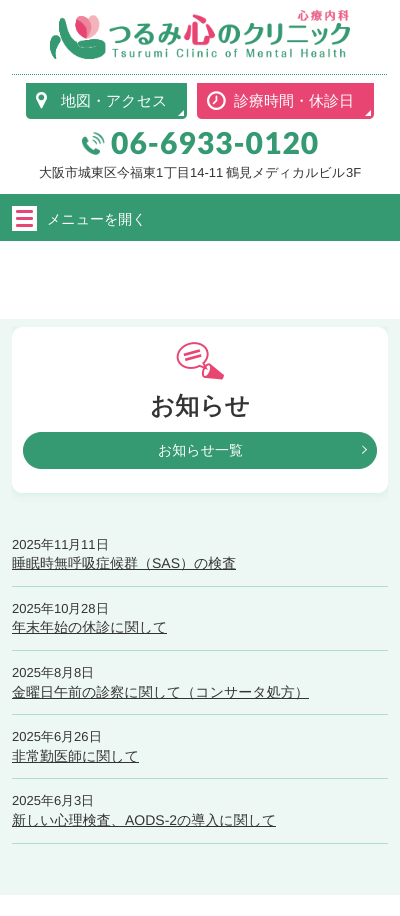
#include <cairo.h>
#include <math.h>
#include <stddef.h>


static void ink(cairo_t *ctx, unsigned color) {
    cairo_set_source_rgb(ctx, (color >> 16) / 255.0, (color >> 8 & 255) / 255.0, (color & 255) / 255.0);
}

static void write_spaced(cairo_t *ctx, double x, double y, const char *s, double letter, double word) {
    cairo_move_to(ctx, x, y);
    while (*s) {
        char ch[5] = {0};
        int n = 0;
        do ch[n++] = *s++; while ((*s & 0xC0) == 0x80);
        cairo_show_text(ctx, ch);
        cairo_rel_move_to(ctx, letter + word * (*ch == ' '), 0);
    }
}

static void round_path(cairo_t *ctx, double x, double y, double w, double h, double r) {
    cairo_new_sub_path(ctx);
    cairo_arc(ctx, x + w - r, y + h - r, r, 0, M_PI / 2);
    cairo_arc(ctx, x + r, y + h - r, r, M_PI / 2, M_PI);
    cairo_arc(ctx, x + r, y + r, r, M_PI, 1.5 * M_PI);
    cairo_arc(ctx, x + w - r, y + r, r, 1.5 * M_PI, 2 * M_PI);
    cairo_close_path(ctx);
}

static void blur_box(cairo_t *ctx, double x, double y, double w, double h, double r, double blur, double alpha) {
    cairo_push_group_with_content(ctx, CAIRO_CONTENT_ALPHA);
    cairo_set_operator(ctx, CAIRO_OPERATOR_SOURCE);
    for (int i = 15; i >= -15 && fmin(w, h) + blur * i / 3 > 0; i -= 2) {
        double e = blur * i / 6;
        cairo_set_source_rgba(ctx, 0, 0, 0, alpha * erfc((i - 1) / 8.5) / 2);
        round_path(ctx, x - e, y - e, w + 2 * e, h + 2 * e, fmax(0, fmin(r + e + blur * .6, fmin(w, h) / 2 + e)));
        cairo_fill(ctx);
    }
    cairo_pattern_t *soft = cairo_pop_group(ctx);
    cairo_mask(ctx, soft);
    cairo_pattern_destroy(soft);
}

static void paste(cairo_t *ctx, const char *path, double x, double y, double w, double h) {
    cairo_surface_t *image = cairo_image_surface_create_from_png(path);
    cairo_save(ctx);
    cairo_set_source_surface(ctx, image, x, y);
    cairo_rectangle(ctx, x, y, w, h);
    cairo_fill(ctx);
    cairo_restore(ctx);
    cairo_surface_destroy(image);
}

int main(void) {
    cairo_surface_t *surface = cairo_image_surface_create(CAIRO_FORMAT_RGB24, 400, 916);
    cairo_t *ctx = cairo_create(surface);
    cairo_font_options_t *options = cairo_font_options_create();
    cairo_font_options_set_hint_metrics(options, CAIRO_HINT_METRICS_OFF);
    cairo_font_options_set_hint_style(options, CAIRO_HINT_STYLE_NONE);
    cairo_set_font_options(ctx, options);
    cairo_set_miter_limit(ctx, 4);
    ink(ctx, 0xFFFFFF);
    cairo_paint(ctx);
    paste(ctx, "media/1.png", 50, 10, 300, 49);
    cairo_new_path(ctx);
    cairo_move_to(ctx, 12, 74.5);
    cairo_line_to(ctx, 388, 74.5);
    ink(ctx, 0x359972);
    cairo_set_line_width(ctx, 1);
    cairo_set_dash(ctx, (double[]){1, 1}, 2, 0);
    cairo_stroke(ctx);
    cairo_new_path(ctx);
    cairo_move_to(ctx, 26, 83);
    cairo_line_to(ctx, 187, 83);
    cairo_line_to(ctx, 187, 114);
    cairo_curve_to(ctx, 187, 117, 185, 119, 182, 119);
    cairo_line_to(ctx, 31, 119);
    cairo_curve_to(ctx, 28, 119, 26, 117, 26, 114);
    cairo_close_path(ctx);
    cairo_fill(ctx);
    paste(ctx, "media/2.png", 36, 92, 11, 17);
    cairo_select_font_face(ctx, "WenQuanYi Zen Hei Medium", CAIRO_FONT_SLANT_NORMAL, CAIRO_FONT_WEIGHT_NORMAL);
    cairo_set_font_size(ctx, 15);
    ink(ctx, 0xFFFFFF);
    cairo_move_to(ctx, 61, 106);
    cairo_show_text(ctx, "地図・アクセス");
    cairo_new_path(ctx);
    cairo_move_to(ctx, 184, 116);
    cairo_line_to(ctx, 178, 116);
    cairo_line_to(ctx, 184, 110);
    cairo_close_path(ctx);
    cairo_fill(ctx);
    ink(ctx, 0xE84572);
    cairo_new_path(ctx);
    cairo_move_to(ctx, 197, 83);
    cairo_line_to(ctx, 374, 83);
    cairo_line_to(ctx, 374, 114);
    cairo_curve_to(ctx, 374, 117, 372, 119, 369, 119);
    cairo_line_to(ctx, 202, 119);
    cairo_curve_to(ctx, 199, 119, 197, 117, 197, 114);
    cairo_close_path(ctx);
    cairo_fill(ctx);
    paste(ctx, "media/3.png", 207, 91, 19, 19);
    ink(ctx, 0xFFFFFF);
    cairo_move_to(ctx, 234, 106);
    cairo_show_text(ctx, "診療時間・休診日");
    cairo_new_path(ctx);
    cairo_move_to(ctx, 371, 116);
    cairo_line_to(ctx, 365, 116);
    cairo_line_to(ctx, 371, 110);
    cairo_close_path(ctx);
    cairo_fill(ctx);
    paste(ctx, "media/4.png", 81, 132, 24, 23);
    cairo_select_font_face(ctx, "Lato Black", CAIRO_FONT_SLANT_NORMAL, CAIRO_FONT_WEIGHT_NORMAL);
    cairo_set_font_size(ctx, 30);
    ink(ctx, 0x359972);
    write_spaced(ctx, 111, 154, "06-6933-0120", 1, 0);
    cairo_select_font_face(ctx, "WenQuanYi Zen Hei Medium", CAIRO_FONT_SLANT_NORMAL, CAIRO_FONT_WEIGHT_NORMAL);
    cairo_set_font_size(ctx, 13);
    ink(ctx, 0x333333);
    cairo_move_to(ctx, 39, 177);
    cairo_show_text(ctx, "大阪市城東区今福東");
    cairo_select_font_face(ctx, "Liberation Sans", CAIRO_FONT_SLANT_NORMAL, CAIRO_FONT_WEIGHT_NORMAL);
    cairo_move_to(ctx, 156, 177);
    cairo_show_text(ctx, "1");
    cairo_select_font_face(ctx, "WenQuanYi Zen Hei Medium", CAIRO_FONT_SLANT_NORMAL, CAIRO_FONT_WEIGHT_NORMAL);
    cairo_move_to(ctx, 164, 177);
    cairo_show_text(ctx, "丁目");
    cairo_select_font_face(ctx, "Liberation Sans", CAIRO_FONT_SLANT_NORMAL, CAIRO_FONT_WEIGHT_NORMAL);
    cairo_move_to(ctx, 190, 177);
    cairo_show_text(ctx, "14-11");
    cairo_select_font_face(ctx, "WenQuanYi Zen Hei Medium", CAIRO_FONT_SLANT_NORMAL, CAIRO_FONT_WEIGHT_NORMAL);
    cairo_move_to(ctx, 226, 177);
    cairo_show_text(ctx, "鶴見メディカルビル");
    cairo_select_font_face(ctx, "Liberation Sans", CAIRO_FONT_SLANT_NORMAL, CAIRO_FONT_WEIGHT_NORMAL);
    cairo_move_to(ctx, 346, 177);
    cairo_show_text(ctx, "3F");
    ink(ctx, 0x359972);
    cairo_rectangle(ctx, 0, 194, 400, 47);
    cairo_fill(ctx);
    paste(ctx, "media/5.png", 12, 206, 25, 25);
    cairo_select_font_face(ctx, "WenQuanYi Zen Hei Medium", CAIRO_FONT_SLANT_NORMAL, CAIRO_FONT_WEIGHT_NORMAL);
    cairo_set_font_size(ctx, 14);
    ink(ctx, 0xFFFFFF);
    cairo_move_to(ctx, 47, 224);
    cairo_show_text(ctx, "メニューを開く");
    ink(ctx, 0xEDF7F3);
    cairo_rectangle(ctx, 0, 319, 400, 576);
    cairo_fill(ctx);
    cairo_save(ctx);
    cairo_rectangle(ctx, 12, 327, 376, 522);
    cairo_clip(ctx);
    ink(ctx, 0x37BC9B);
    blur_box(ctx, 12, 327, 376, 166, 10, 5, 0.2);
    cairo_restore(ctx);
    ink(ctx, 0xFFFFFF);
    round_path(ctx, 12, 327, 376, 166, 10);
    cairo_fill(ctx);
    paste(ctx, "media/6.png", 176, 342, 48, 38);
    cairo_select_font_face(ctx, "WenQuanYi Zen Hei", CAIRO_FONT_SLANT_NORMAL, CAIRO_FONT_WEIGHT_BOLD);
    cairo_set_font_size(ctx, 24.5);
    ink(ctx, 0x333333);
    cairo_move_to(ctx, 150, 414);
    cairo_show_text(ctx, "お知らせ");
    ink(ctx, 0x359972);
    round_path(ctx, 23.5, 432.5, 353, 36, 18);
    cairo_fill_preserve(ctx);
    cairo_set_dash(ctx, NULL, 0, 0);
    cairo_stroke(ctx);
    cairo_select_font_face(ctx, "WenQuanYi Zen Hei Medium", CAIRO_FONT_SLANT_NORMAL, CAIRO_FONT_WEIGHT_NORMAL);
    cairo_set_font_size(ctx, 14);
    ink(ctx, 0xFFFFFF);
    cairo_move_to(ctx, 158, 455);
    cairo_show_text(ctx, "お知らせ一覧");
    cairo_new_path(ctx);
    cairo_move_to(ctx, 362.5, 445.5);
    cairo_line_to(ctx, 367, 449.5);
    cairo_line_to(ctx, 366.5, 450.5);
    cairo_line_to(ctx, 362, 446);
    cairo_close_path(ctx);
    cairo_fill(ctx);
    cairo_new_path(ctx);
    cairo_move_to(ctx, 366.5, 449);
    cairo_line_to(ctx, 367, 449.5);
    cairo_line_to(ctx, 362.5, 454);
    cairo_line_to(ctx, 362, 453);
    cairo_close_path(ctx);
    cairo_fill(ctx);
    ink(ctx, 0xB5DBCC);
    cairo_rectangle(ctx, 12, 586, 376, 1);
    cairo_fill(ctx);
    cairo_select_font_face(ctx, "Liberation Sans", CAIRO_FONT_SLANT_NORMAL, CAIRO_FONT_WEIGHT_NORMAL);
    cairo_set_font_size(ctx, 13);
    ink(ctx, 0x333333);
    cairo_move_to(ctx, 12, 549);
    cairo_show_text(ctx, "2025");
    cairo_select_font_face(ctx, "WenQuanYi Zen Hei Medium", CAIRO_FONT_SLANT_NORMAL, CAIRO_FONT_WEIGHT_NORMAL);
    cairo_move_to(ctx, 41, 549);
    cairo_show_text(ctx, "年");
    cairo_select_font_face(ctx, "Liberation Sans", CAIRO_FONT_SLANT_NORMAL, CAIRO_FONT_WEIGHT_NORMAL);
    cairo_move_to(ctx, 54, 549);
    cairo_show_text(ctx, "11");
    cairo_select_font_face(ctx, "WenQuanYi Zen Hei Medium", CAIRO_FONT_SLANT_NORMAL, CAIRO_FONT_WEIGHT_NORMAL);
    cairo_move_to(ctx, 68, 549);
    cairo_show_text(ctx, "月");
    cairo_select_font_face(ctx, "Liberation Sans", CAIRO_FONT_SLANT_NORMAL, CAIRO_FONT_WEIGHT_NORMAL);
    cairo_move_to(ctx, 81, 549);
    cairo_show_text(ctx, "11");
    cairo_select_font_face(ctx, "WenQuanYi Zen Hei Medium", CAIRO_FONT_SLANT_NORMAL, CAIRO_FONT_WEIGHT_NORMAL);
    cairo_move_to(ctx, 96, 549);
    cairo_show_text(ctx, "日");
    cairo_rectangle(ctx, 12, 569, 224, 1);
    cairo_fill(ctx);
    cairo_set_font_size(ctx, 14);
    cairo_move_to(ctx, 12, 568);
    cairo_show_text(ctx, "睡眠時無呼吸症候群（");
    cairo_select_font_face(ctx, "Liberation Sans", CAIRO_FONT_SLANT_NORMAL, CAIRO_FONT_WEIGHT_NORMAL);
    cairo_move_to(ctx, 152, 568);
    cairo_show_text(ctx, "SAS");
    cairo_select_font_face(ctx, "WenQuanYi Zen Hei Medium", CAIRO_FONT_SLANT_NORMAL, CAIRO_FONT_WEIGHT_NORMAL);
    cairo_move_to(ctx, 180, 568);
    cairo_show_text(ctx, "）の検査");
    ink(ctx, 0xB5DBCC);
    cairo_rectangle(ctx, 12, 650, 376, 1);
    cairo_fill(ctx);
    cairo_select_font_face(ctx, "Liberation Sans", CAIRO_FONT_SLANT_NORMAL, CAIRO_FONT_WEIGHT_NORMAL);
    cairo_set_font_size(ctx, 13);
    ink(ctx, 0x333333);
    cairo_move_to(ctx, 12, 613);
    cairo_show_text(ctx, "2025");
    cairo_select_font_face(ctx, "WenQuanYi Zen Hei Medium", CAIRO_FONT_SLANT_NORMAL, CAIRO_FONT_WEIGHT_NORMAL);
    cairo_move_to(ctx, 41, 613);
    cairo_show_text(ctx, "年");
    cairo_select_font_face(ctx, "Liberation Sans", CAIRO_FONT_SLANT_NORMAL, CAIRO_FONT_WEIGHT_NORMAL);
    cairo_move_to(ctx, 54, 613);
    cairo_show_text(ctx, "10");
    cairo_select_font_face(ctx, "WenQuanYi Zen Hei Medium", CAIRO_FONT_SLANT_NORMAL, CAIRO_FONT_WEIGHT_NORMAL);
    cairo_move_to(ctx, 68, 613);
    cairo_show_text(ctx, "月");
    cairo_select_font_face(ctx, "Liberation Sans", CAIRO_FONT_SLANT_NORMAL, CAIRO_FONT_WEIGHT_NORMAL);
    cairo_move_to(ctx, 81, 613);
    cairo_show_text(ctx, "28");
    cairo_select_font_face(ctx, "WenQuanYi Zen Hei Medium", CAIRO_FONT_SLANT_NORMAL, CAIRO_FONT_WEIGHT_NORMAL);
    cairo_move_to(ctx, 96, 613);
    cairo_show_text(ctx, "日");
    cairo_rectangle(ctx, 12, 633, 155, 1);
    cairo_fill(ctx);
    cairo_set_font_size(ctx, 14);
    cairo_move_to(ctx, 12, 632);
    cairo_show_text(ctx, "年末年始の休診に関して");
    ink(ctx, 0xB5DBCC);
    cairo_rectangle(ctx, 12, 714, 376, 1);
    cairo_fill(ctx);
    cairo_select_font_face(ctx, "Liberation Sans", CAIRO_FONT_SLANT_NORMAL, CAIRO_FONT_WEIGHT_NORMAL);
    cairo_set_font_size(ctx, 13);
    ink(ctx, 0x333333);
    cairo_move_to(ctx, 12, 677);
    cairo_show_text(ctx, "2025");
    cairo_select_font_face(ctx, "WenQuanYi Zen Hei Medium", CAIRO_FONT_SLANT_NORMAL, CAIRO_FONT_WEIGHT_NORMAL);
    cairo_move_to(ctx, 41, 677);
    cairo_show_text(ctx, "年");
    cairo_select_font_face(ctx, "Liberation Sans", CAIRO_FONT_SLANT_NORMAL, CAIRO_FONT_WEIGHT_NORMAL);
    cairo_move_to(ctx, 54, 677);
    cairo_show_text(ctx, "8");
    cairo_select_font_face(ctx, "WenQuanYi Zen Hei Medium", CAIRO_FONT_SLANT_NORMAL, CAIRO_FONT_WEIGHT_NORMAL);
    cairo_move_to(ctx, 61, 677);
    cairo_show_text(ctx, "月");
    cairo_select_font_face(ctx, "Liberation Sans", CAIRO_FONT_SLANT_NORMAL, CAIRO_FONT_WEIGHT_NORMAL);
    cairo_move_to(ctx, 74, 677);
    cairo_show_text(ctx, "8");
    cairo_select_font_face(ctx, "WenQuanYi Zen Hei Medium", CAIRO_FONT_SLANT_NORMAL, CAIRO_FONT_WEIGHT_NORMAL);
    cairo_move_to(ctx, 81, 677);
    cairo_show_text(ctx, "日");
    cairo_rectangle(ctx, 12, 698, 297, 1);
    cairo_fill(ctx);
    cairo_set_font_size(ctx, 14);
    cairo_move_to(ctx, 12, 697);
    cairo_show_text(ctx, "金曜日午前の診察に関して（コンサータ処方）");
    ink(ctx, 0xB5DBCC);
    cairo_rectangle(ctx, 12, 778, 376, 1);
    cairo_fill(ctx);
    cairo_select_font_face(ctx, "Liberation Sans", CAIRO_FONT_SLANT_NORMAL, CAIRO_FONT_WEIGHT_NORMAL);
    cairo_set_font_size(ctx, 13);
    ink(ctx, 0x333333);
    cairo_move_to(ctx, 12, 741);
    cairo_show_text(ctx, "2025");
    cairo_select_font_face(ctx, "WenQuanYi Zen Hei Medium", CAIRO_FONT_SLANT_NORMAL, CAIRO_FONT_WEIGHT_NORMAL);
    cairo_move_to(ctx, 41, 741);
    cairo_show_text(ctx, "年");
    cairo_select_font_face(ctx, "Liberation Sans", CAIRO_FONT_SLANT_NORMAL, CAIRO_FONT_WEIGHT_NORMAL);
    cairo_move_to(ctx, 54, 741);
    cairo_show_text(ctx, "6");
    cairo_select_font_face(ctx, "WenQuanYi Zen Hei Medium", CAIRO_FONT_SLANT_NORMAL, CAIRO_FONT_WEIGHT_NORMAL);
    cairo_move_to(ctx, 61, 741);
    cairo_show_text(ctx, "月");
    cairo_select_font_face(ctx, "Liberation Sans", CAIRO_FONT_SLANT_NORMAL, CAIRO_FONT_WEIGHT_NORMAL);
    cairo_move_to(ctx, 74, 741);
    cairo_show_text(ctx, "26");
    cairo_select_font_face(ctx, "WenQuanYi Zen Hei Medium", CAIRO_FONT_SLANT_NORMAL, CAIRO_FONT_WEIGHT_NORMAL);
    cairo_move_to(ctx, 89, 741);
    cairo_show_text(ctx, "日");
    cairo_rectangle(ctx, 12, 762, 127, 1);
    cairo_fill(ctx);
    cairo_set_font_size(ctx, 14);
    cairo_move_to(ctx, 12, 761);
    cairo_show_text(ctx, "非常勤医師に関して");
    ink(ctx, 0xB5DBCC);
    cairo_rectangle(ctx, 12, 843, 376, 1);
    cairo_fill(ctx);
    cairo_select_font_face(ctx, "Liberation Sans", CAIRO_FONT_SLANT_NORMAL, CAIRO_FONT_WEIGHT_NORMAL);
    cairo_set_font_size(ctx, 13);
    ink(ctx, 0x333333);
    cairo_move_to(ctx, 12, 805);
    cairo_show_text(ctx, "2025");
    cairo_select_font_face(ctx, "WenQuanYi Zen Hei Medium", CAIRO_FONT_SLANT_NORMAL, CAIRO_FONT_WEIGHT_NORMAL);
    cairo_move_to(ctx, 41, 805);
    cairo_show_text(ctx, "年");
    cairo_select_font_face(ctx, "Liberation Sans", CAIRO_FONT_SLANT_NORMAL, CAIRO_FONT_WEIGHT_NORMAL);
    cairo_move_to(ctx, 54, 805);
    cairo_show_text(ctx, "6");
    cairo_select_font_face(ctx, "WenQuanYi Zen Hei Medium", CAIRO_FONT_SLANT_NORMAL, CAIRO_FONT_WEIGHT_NORMAL);
    cairo_move_to(ctx, 61, 805);
    cairo_show_text(ctx, "月");
    cairo_select_font_face(ctx, "Liberation Sans", CAIRO_FONT_SLANT_NORMAL, CAIRO_FONT_WEIGHT_NORMAL);
    cairo_move_to(ctx, 74, 805);
    cairo_show_text(ctx, "3");
    cairo_select_font_face(ctx, "WenQuanYi Zen Hei Medium", CAIRO_FONT_SLANT_NORMAL, CAIRO_FONT_WEIGHT_NORMAL);
    cairo_move_to(ctx, 81, 805);
    cairo_show_text(ctx, "日");
    cairo_rectangle(ctx, 12, 826, 264, 1);
    cairo_fill(ctx);
    cairo_set_font_size(ctx, 14);
    cairo_move_to(ctx, 12, 825);
    cairo_show_text(ctx, "新しい心理検査、");
    cairo_select_font_face(ctx, "Liberation Sans", CAIRO_FONT_SLANT_NORMAL, CAIRO_FONT_WEIGHT_NORMAL);
    cairo_move_to(ctx, 125, 825);
    cairo_show_text(ctx, "AODS-2");
    cairo_select_font_face(ctx, "WenQuanYi Zen Hei Medium", CAIRO_FONT_SLANT_NORMAL, CAIRO_FONT_WEIGHT_NORMAL);
    cairo_move_to(ctx, 177, 825);
    cairo_show_text(ctx, "の導入に関して");
    cairo_surface_write_to_png(surface, "image.png");
    cairo_font_options_destroy(options);
    cairo_destroy(ctx);
    cairo_surface_destroy(surface);
    return 0;
}
